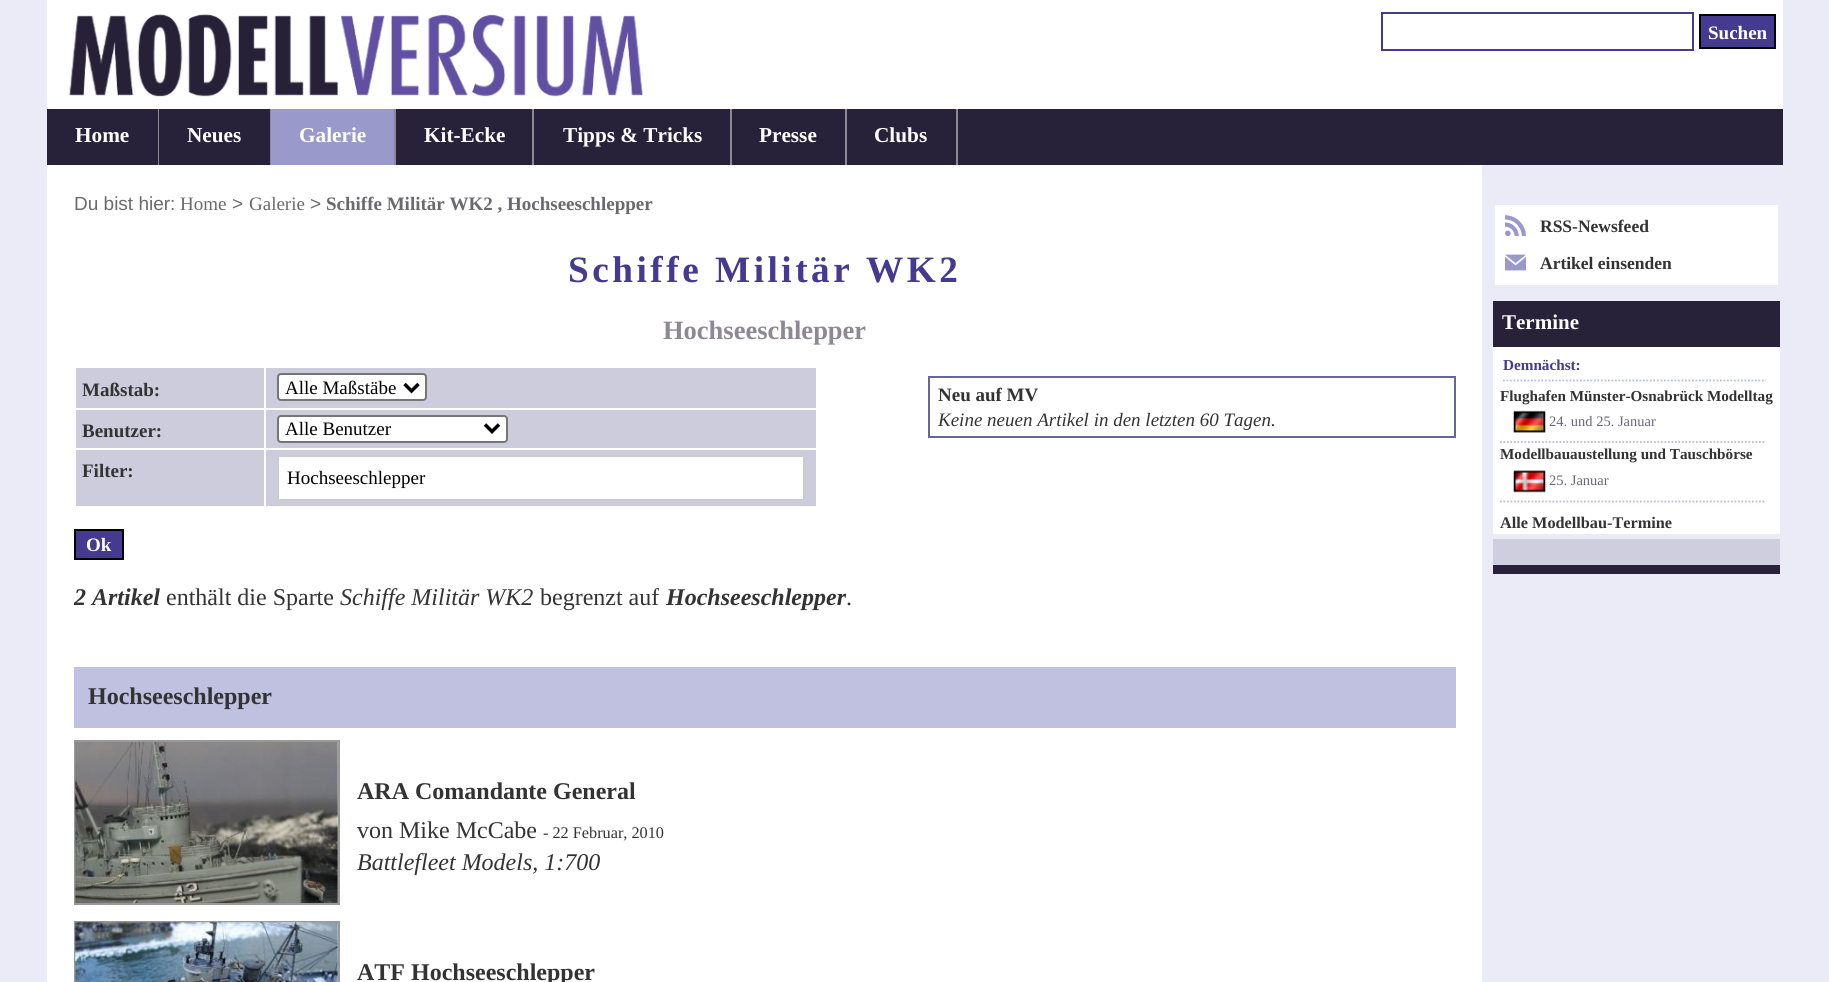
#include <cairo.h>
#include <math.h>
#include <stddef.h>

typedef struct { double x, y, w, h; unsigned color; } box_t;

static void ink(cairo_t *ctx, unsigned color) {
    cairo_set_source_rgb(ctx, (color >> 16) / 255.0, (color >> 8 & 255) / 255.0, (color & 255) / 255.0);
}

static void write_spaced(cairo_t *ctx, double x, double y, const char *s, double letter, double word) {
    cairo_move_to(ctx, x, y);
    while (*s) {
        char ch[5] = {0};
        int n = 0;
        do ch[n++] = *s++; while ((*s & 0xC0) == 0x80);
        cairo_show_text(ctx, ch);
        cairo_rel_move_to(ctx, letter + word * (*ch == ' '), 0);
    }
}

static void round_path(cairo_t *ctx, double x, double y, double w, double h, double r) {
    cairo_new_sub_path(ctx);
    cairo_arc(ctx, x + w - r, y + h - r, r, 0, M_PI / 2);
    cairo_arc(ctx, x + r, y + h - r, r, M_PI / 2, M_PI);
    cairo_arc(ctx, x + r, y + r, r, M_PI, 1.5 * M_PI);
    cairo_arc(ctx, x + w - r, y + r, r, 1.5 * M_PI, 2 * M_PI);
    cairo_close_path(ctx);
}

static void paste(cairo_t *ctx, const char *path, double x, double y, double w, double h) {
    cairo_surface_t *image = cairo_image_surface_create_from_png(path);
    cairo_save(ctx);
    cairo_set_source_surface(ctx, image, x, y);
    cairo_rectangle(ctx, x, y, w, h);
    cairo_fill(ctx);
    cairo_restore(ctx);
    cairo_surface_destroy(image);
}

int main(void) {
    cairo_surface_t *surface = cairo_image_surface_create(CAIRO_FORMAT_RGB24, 1829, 982);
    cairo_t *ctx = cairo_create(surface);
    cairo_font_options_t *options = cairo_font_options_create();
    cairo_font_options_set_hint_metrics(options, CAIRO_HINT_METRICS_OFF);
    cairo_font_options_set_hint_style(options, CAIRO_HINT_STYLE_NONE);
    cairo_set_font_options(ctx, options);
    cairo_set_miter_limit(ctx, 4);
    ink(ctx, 0xEBEBF7);
    cairo_paint(ctx);
    ink(ctx, 0xFFFFFF);
    cairo_rectangle(ctx, 47, 0, 1736, 109);
    cairo_fill(ctx);
    paste(ctx, "media/1.png", 69, 14, 574, 83);
    cairo_rectangle(ctx, 1382, 13, 311, 37);
    ink(ctx, 0x443A90);
    cairo_stroke(ctx);
    cairo_rectangle(ctx, 1700, 15, 75, 33);
    cairo_fill_preserve(ctx);
    ink(ctx, 0x000000);
    cairo_stroke(ctx);
    cairo_select_font_face(ctx, "Liberation Serif", CAIRO_FONT_SLANT_NORMAL, CAIRO_FONT_WEIGHT_BOLD);
    cairo_set_font_size(ctx, 19);
    ink(ctx, 0xFFFFFF);
    cairo_move_to(ctx, 1708, 39);
    cairo_show_text(ctx, "Suchen");
    ink(ctx, 0x272239);
    cairo_rectangle(ctx, 47, 109, 1736, 56);
    cairo_fill(ctx);
    ink(ctx, 0x8D8893);
    cairo_rectangle(ctx, 158, 109, 1, 56);
    cairo_fill(ctx);
    cairo_set_font_size(ctx, 21.25);
    ink(ctx, 0xFFFFFF);
    cairo_move_to(ctx, 75, 142);
    cairo_show_text(ctx, "Home");
    ink(ctx, 0x8D8893);
    cairo_rectangle(ctx, 270, 109, 1, 56);
    cairo_fill(ctx);
    ink(ctx, 0xFFFFFF);
    cairo_move_to(ctx, 187, 142);
    cairo_show_text(ctx, "Neues");
    ink(ctx, 0x9999CC);
    cairo_rectangle(ctx, 271, 109, 123, 56);
    cairo_fill(ctx);
    ink(ctx, 0x8D8893);
    cairo_rectangle(ctx, 394, 109, 2, 56);
    cairo_fill(ctx);
    ink(ctx, 0xFFFFFF);
    cairo_move_to(ctx, 299, 142);
    cairo_show_text(ctx, "Galerie");
    ink(ctx, 0x8D8893);
    cairo_rectangle(ctx, 532, 109, 2, 56);
    cairo_fill(ctx);
    ink(ctx, 0xFFFFFF);
    cairo_move_to(ctx, 424, 142);
    cairo_show_text(ctx, "Kit-Ecke");
    ink(ctx, 0x8D8893);
    cairo_rectangle(ctx, 730, 109, 2, 56);
    cairo_fill(ctx);
    ink(ctx, 0xFFFFFF);
    cairo_move_to(ctx, 563, 142);
    cairo_show_text(ctx, "Tipps & Tricks");
    ink(ctx, 0x8D8893);
    cairo_rectangle(ctx, 845, 109, 2, 56);
    cairo_fill(ctx);
    ink(ctx, 0xFFFFFF);
    cairo_move_to(ctx, 759, 142);
    cairo_show_text(ctx, "Presse");
    ink(ctx, 0x8D8893);
    cairo_rectangle(ctx, 956, 109, 2, 56);
    cairo_fill(ctx);
    ink(ctx, 0xFFFFFF);
    cairo_move_to(ctx, 874, 142);
    cairo_show_text(ctx, "Clubs");
    cairo_rectangle(ctx, 47, 165, 1435, 817);
    cairo_fill(ctx);
    cairo_select_font_face(ctx, "Liberation Sans", CAIRO_FONT_SLANT_NORMAL, CAIRO_FONT_WEIGHT_NORMAL);
    cairo_set_font_size(ctx, 19);
    ink(ctx, 0x6A696F);
    cairo_move_to(ctx, 74, 210);
    cairo_show_text(ctx, "Du bist hier:");
    cairo_select_font_face(ctx, "Liberation Serif", CAIRO_FONT_SLANT_NORMAL, CAIRO_FONT_WEIGHT_NORMAL);
    cairo_move_to(ctx, 180, 210);
    cairo_show_text(ctx, "Home");
    cairo_select_font_face(ctx, "Liberation Sans", CAIRO_FONT_SLANT_NORMAL, CAIRO_FONT_WEIGHT_NORMAL);
    cairo_move_to(ctx, 232, 210);
    cairo_show_text(ctx, ">");
    cairo_select_font_face(ctx, "Liberation Serif", CAIRO_FONT_SLANT_NORMAL, CAIRO_FONT_WEIGHT_NORMAL);
    cairo_move_to(ctx, 249, 210);
    cairo_show_text(ctx, "Galerie");
    cairo_select_font_face(ctx, "Liberation Sans", CAIRO_FONT_SLANT_NORMAL, CAIRO_FONT_WEIGHT_NORMAL);
    cairo_move_to(ctx, 310, 210);
    cairo_show_text(ctx, ">");
    cairo_select_font_face(ctx, "Liberation Serif", CAIRO_FONT_SLANT_NORMAL, CAIRO_FONT_WEIGHT_BOLD);
    cairo_move_to(ctx, 326, 210);
    cairo_show_text(ctx, "Schiffe Militär WK2 , Hochseeschlepper");
    cairo_set_font_size(ctx, 37.25);
    ink(ctx, 0x443A90);
    write_spaced(ctx, 568, 282, "Schiffe Militär WK2", 3.5, 0);
    cairo_set_font_size(ctx, 26.5);
    ink(ctx, 0x8D8893);
    cairo_move_to(ctx, 663, 339);
    cairo_show_text(ctx, "Hochseeschlepper");
    ink(ctx, 0xCCCCDD);
    cairo_rectangle(ctx, 76, 368, 740, 138);
    cairo_fill(ctx);
    cairo_set_font_size(ctx, 19);
    ink(ctx, 0x333333);
    cairo_move_to(ctx, 82, 396);
    cairo_show_text(ctx, "Maßstab:");
    {
        static const box_t items[] = {
            {264, 408, 553, 2, 0xFFFFFF},
            {264, 448, 553, 2, 0xFFFFFF},
            {264, 448, 2, 60, 0xFFFFFF},
            {74, 448, 192, 2, 0xFFFFFF},
            {264, 408, 2, 42, 0xFFFFFF},
            {74, 408, 192, 2, 0xFFFFFF},
            {264, 366, 2, 44, 0xFFFFFF},
        };
        for (size_t i = 0; i < sizeof items / sizeof *items; i++) {
            ink(ctx, items[i].color);
            cairo_rectangle(ctx, items[i].x, items[i].y, items[i].w, items[i].h);
            cairo_fill(ctx);
        }
    }
    round_path(ctx, 278, 374, 148, 26, 3);
    cairo_fill_preserve(ctx);
    ink(ctx, 0x767676);
    cairo_stroke(ctx);
    cairo_new_path(ctx);
    cairo_move_to(ctx, 404.5, 384);
    cairo_line_to(ctx, 411.5, 391);
    cairo_line_to(ctx, 418.5, 384);
    ink(ctx, 0x000000);
    cairo_set_line_width(ctx, 3.5);
    cairo_stroke(ctx);
    cairo_select_font_face(ctx, "Liberation Serif", CAIRO_FONT_SLANT_NORMAL, CAIRO_FONT_WEIGHT_NORMAL);
    cairo_move_to(ctx, 285, 394);
    cairo_show_text(ctx, "Alle Maßstäbe");
    cairo_select_font_face(ctx, "Liberation Serif", CAIRO_FONT_SLANT_NORMAL, CAIRO_FONT_WEIGHT_BOLD);
    ink(ctx, 0x333333);
    cairo_move_to(ctx, 82, 437);
    cairo_show_text(ctx, "Benutzer:");
    ink(ctx, 0xFFFFFF);
    round_path(ctx, 278, 416, 229, 26, 3);
    cairo_fill_preserve(ctx);
    ink(ctx, 0x767676);
    cairo_set_line_width(ctx, 2);
    cairo_stroke(ctx);
    cairo_new_path(ctx);
    cairo_move_to(ctx, 485, 424.5);
    cairo_line_to(ctx, 492, 431.5);
    cairo_line_to(ctx, 499, 424.5);
    ink(ctx, 0x000000);
    cairo_set_line_width(ctx, 3.5);
    cairo_stroke(ctx);
    cairo_select_font_face(ctx, "Liberation Serif", CAIRO_FONT_SLANT_NORMAL, CAIRO_FONT_WEIGHT_NORMAL);
    cairo_move_to(ctx, 285, 435);
    cairo_show_text(ctx, "Alle Benutzer");
    cairo_select_font_face(ctx, "Liberation Serif", CAIRO_FONT_SLANT_NORMAL, CAIRO_FONT_WEIGHT_BOLD);
    ink(ctx, 0x333333);
    cairo_move_to(ctx, 82, 477);
    cairo_show_text(ctx, "Filter:");
    ink(ctx, 0xFFFFFF);
    cairo_rectangle(ctx, 278, 456, 526, 44);
    cairo_fill_preserve(ctx);
    ink(ctx, 0xCCCCCC);
    cairo_set_line_width(ctx, 2);
    cairo_stroke(ctx);
    cairo_select_font_face(ctx, "Liberation Serif", CAIRO_FONT_SLANT_NORMAL, CAIRO_FONT_WEIGHT_NORMAL);
    ink(ctx, 0x000000);
    cairo_move_to(ctx, 287, 484);
    cairo_show_text(ctx, "Hochseeschlepper");
    ink(ctx, 0x443A90);
    cairo_rectangle(ctx, 75, 530, 48, 29);
    cairo_fill_preserve(ctx);
    ink(ctx, 0x000000);
    cairo_stroke(ctx);
    cairo_select_font_face(ctx, "Liberation Serif", CAIRO_FONT_SLANT_NORMAL, CAIRO_FONT_WEIGHT_BOLD);
    ink(ctx, 0xFFFFFF);
    cairo_move_to(ctx, 86, 551);
    cairo_show_text(ctx, "Ok");
    cairo_rectangle(ctx, 929, 377, 526, 60);
    ink(ctx, 0x666699);
    cairo_stroke(ctx);
    ink(ctx, 0x333333);
    cairo_move_to(ctx, 938, 401);
    cairo_show_text(ctx, "Neu auf MV");
    cairo_select_font_face(ctx, "Liberation Serif", CAIRO_FONT_SLANT_ITALIC, CAIRO_FONT_WEIGHT_NORMAL);
    cairo_move_to(ctx, 938, 426);
    cairo_show_text(ctx, "Keine neuen Artikel in den letzten 60 Tagen.");
    cairo_select_font_face(ctx, "Liberation Serif", CAIRO_FONT_SLANT_ITALIC, CAIRO_FONT_WEIGHT_BOLD);
    cairo_set_font_size(ctx, 24);
    cairo_move_to(ctx, 74, 605);
    cairo_show_text(ctx, "2 Artikel");
    cairo_select_font_face(ctx, "Liberation Serif", CAIRO_FONT_SLANT_NORMAL, CAIRO_FONT_WEIGHT_NORMAL);
    cairo_move_to(ctx, 166, 605);
    cairo_show_text(ctx, "enthält die Sparte");
    cairo_select_font_face(ctx, "Liberation Serif", CAIRO_FONT_SLANT_ITALIC, CAIRO_FONT_WEIGHT_NORMAL);
    cairo_move_to(ctx, 340, 605);
    cairo_show_text(ctx, "Schiffe Militär WK2");
    cairo_select_font_face(ctx, "Liberation Serif", CAIRO_FONT_SLANT_NORMAL, CAIRO_FONT_WEIGHT_NORMAL);
    cairo_move_to(ctx, 540, 605);
    cairo_show_text(ctx, "begrenzt auf");
    cairo_select_font_face(ctx, "Liberation Serif", CAIRO_FONT_SLANT_ITALIC, CAIRO_FONT_WEIGHT_BOLD);
    cairo_move_to(ctx, 666, 605);
    cairo_show_text(ctx, "Hochseeschlepper");
    cairo_select_font_face(ctx, "Liberation Serif", CAIRO_FONT_SLANT_NORMAL, CAIRO_FONT_WEIGHT_NORMAL);
    cairo_move_to(ctx, 846, 605);
    cairo_show_text(ctx, ".");
    ink(ctx, 0xC0C0E0);
    cairo_rectangle(ctx, 74, 667, 1382, 61);
    cairo_fill(ctx);
    cairo_select_font_face(ctx, "Liberation Serif", CAIRO_FONT_SLANT_NORMAL, CAIRO_FONT_WEIGHT_BOLD);
    ink(ctx, 0x333333);
    cairo_move_to(ctx, 88, 704);
    cairo_show_text(ctx, "Hochseeschlepper");
    cairo_rectangle(ctx, 75, 741, 264, 163);
    ink(ctx, 0x999999);
    cairo_stroke(ctx);
    paste(ctx, "media/2.png", 75, 742, 263, 161);
    ink(ctx, 0x333333);
    cairo_move_to(ctx, 357, 799);
    cairo_show_text(ctx, "ARA Comandante General");
    cairo_select_font_face(ctx, "Liberation Serif", CAIRO_FONT_SLANT_NORMAL, CAIRO_FONT_WEIGHT_NORMAL);
    cairo_move_to(ctx, 357, 838);
    cairo_show_text(ctx, "von Mike McCabe");
    cairo_set_font_size(ctx, 16.25);
    cairo_move_to(ctx, 543, 838);
    cairo_show_text(ctx, "- 22 Februar, 2010");
    cairo_select_font_face(ctx, "Liberation Serif", CAIRO_FONT_SLANT_ITALIC, CAIRO_FONT_WEIGHT_NORMAL);
    cairo_set_font_size(ctx, 24);
    cairo_move_to(ctx, 357, 870);
    cairo_show_text(ctx, "Battlefleet Models, 1:700");
    cairo_rectangle(ctx, 75, 922, 264, 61);
    ink(ctx, 0x999999);
    cairo_stroke(ctx);
    paste(ctx, "media/3.png", 75, 922, 263, 60);
    cairo_select_font_face(ctx, "Liberation Serif", CAIRO_FONT_SLANT_NORMAL, CAIRO_FONT_WEIGHT_BOLD);
    ink(ctx, 0x333333);
    cairo_move_to(ctx, 357, 980);
    cairo_show_text(ctx, "ATF Hochseeschlepper");
    ink(ctx, 0xFFFFFF);
    cairo_rectangle(ctx, 1495, 205, 283, 80);
    cairo_fill(ctx);
    paste(ctx, "media/4.png", 1505, 215, 21, 21);
    cairo_set_font_size(ctx, 17.5);
    ink(ctx, 0x333333);
    cairo_move_to(ctx, 1540, 232);
    cairo_show_text(ctx, "RSS-Newsfeed");
    paste(ctx, "media/5.png", 1505, 254, 21, 17);
    cairo_move_to(ctx, 1540, 269);
    cairo_show_text(ctx, "Artikel einsenden");
    ink(ctx, 0xFFFFFF);
    cairo_rectangle(ctx, 1493, 347, 287, 187);
    cairo_fill(ctx);
    ink(ctx, 0x272239);
    cairo_rectangle(ctx, 1493, 301, 287, 46);
    cairo_fill(ctx);
    cairo_set_font_size(ctx, 21);
    ink(ctx, 0xFFFFFF);
    cairo_move_to(ctx, 1502, 329);
    cairo_show_text(ctx, "Termine");
    cairo_new_path(ctx);
    cairo_move_to(ctx, 1503, 380.5);
    cairo_line_to(ctx, 1766, 380.5);
    ink(ctx, 0xBBBBDD);
    cairo_set_line_width(ctx, 1.8);
    cairo_set_dash(ctx, (double[]){1.75, 1.75}, 2, 0);
    cairo_stroke(ctx);
    cairo_set_font_size(ctx, 15.2);
    ink(ctx, 0x443A90);
    cairo_move_to(ctx, 1503, 370);
    cairo_show_text(ctx, "Demnächst:");
    ink(ctx, 0x333333);
    cairo_move_to(ctx, 1500, 401);
    cairo_show_text(ctx, "Flughafen Münster-Osnabrück Modelltag");
    cairo_new_path(ctx);
    cairo_move_to(ctx, 1500, 442);
    cairo_line_to(ctx, 1766, 442);
    ink(ctx, 0xBBBBDD);
    cairo_stroke(ctx);
    paste(ctx, "media/6.png", 1513, 410, 33, 23);
    cairo_select_font_face(ctx, "Liberation Serif", CAIRO_FONT_SLANT_NORMAL, CAIRO_FONT_WEIGHT_NORMAL);
    cairo_set_font_size(ctx, 14.5);
    ink(ctx, 0x666677);
    cairo_move_to(ctx, 1549, 426);
    cairo_show_text(ctx, "24. und 25. Januar");
    cairo_select_font_face(ctx, "Liberation Serif", CAIRO_FONT_SLANT_NORMAL, CAIRO_FONT_WEIGHT_BOLD);
    cairo_set_font_size(ctx, 15.2);
    ink(ctx, 0x333333);
    cairo_move_to(ctx, 1500, 459);
    cairo_show_text(ctx, "Modellbauaustellung und Tauschbörse");
    cairo_new_path(ctx);
    cairo_move_to(ctx, 1500, 501.5);
    cairo_line_to(ctx, 1766, 501.5);
    ink(ctx, 0xBBBBDD);
    cairo_stroke(ctx);
    paste(ctx, "media/7.png", 1513, 470, 33, 23);
    cairo_select_font_face(ctx, "Liberation Serif", CAIRO_FONT_SLANT_NORMAL, CAIRO_FONT_WEIGHT_NORMAL);
    cairo_set_font_size(ctx, 14.5);
    ink(ctx, 0x666677);
    cairo_move_to(ctx, 1549, 485);
    cairo_show_text(ctx, "25. Januar");
    cairo_select_font_face(ctx, "Liberation Serif", CAIRO_FONT_SLANT_NORMAL, CAIRO_FONT_WEIGHT_BOLD);
    cairo_set_font_size(ctx, 16.25);
    ink(ctx, 0x333333);
    cairo_move_to(ctx, 1500, 528);
    cairo_show_text(ctx, "Alle Modellbau-Termine");
    ink(ctx, 0xCECEDF);
    cairo_rectangle(ctx, 1493, 539, 287, 26);
    cairo_fill(ctx);
    ink(ctx, 0x272239);
    cairo_rectangle(ctx, 1493, 565, 287, 9);
    cairo_fill(ctx);
    cairo_surface_write_to_png(surface, "image.png");
    cairo_font_options_destroy(options);
    cairo_destroy(ctx);
    cairo_surface_destroy(surface);
    return 0;
}
